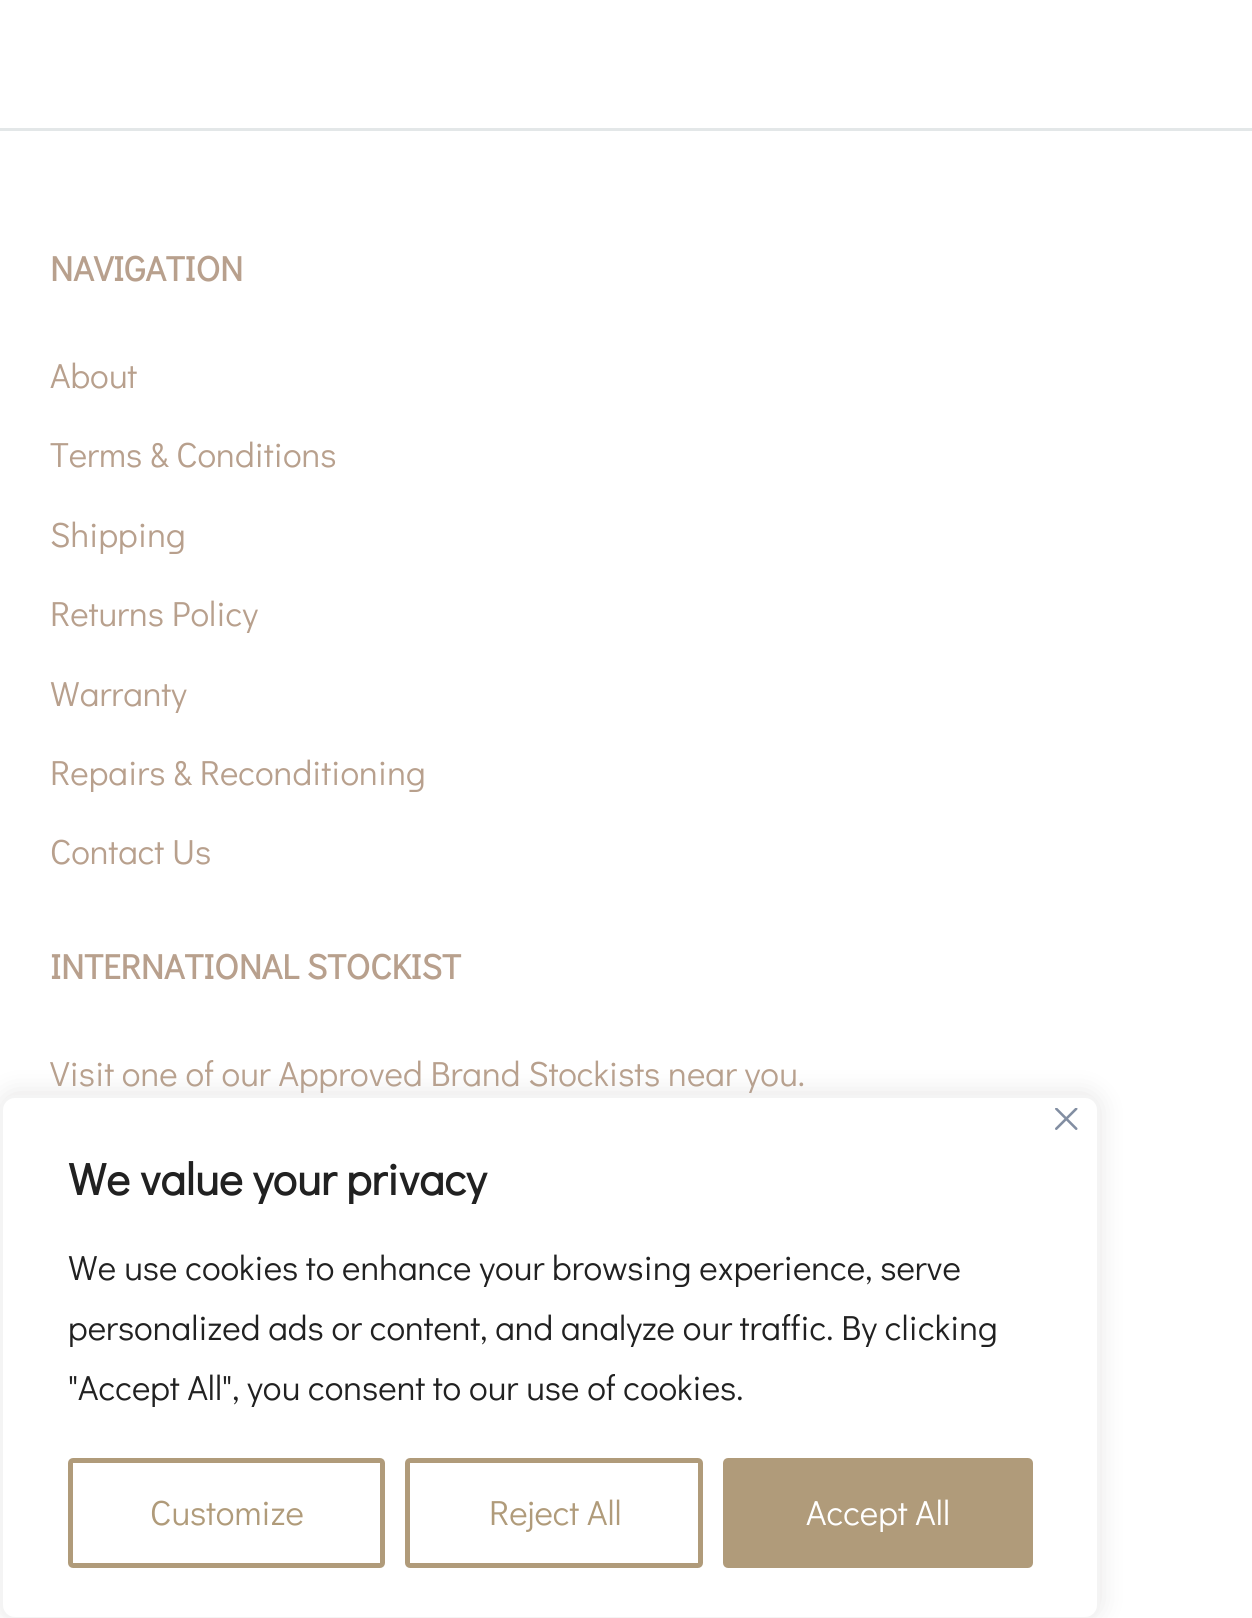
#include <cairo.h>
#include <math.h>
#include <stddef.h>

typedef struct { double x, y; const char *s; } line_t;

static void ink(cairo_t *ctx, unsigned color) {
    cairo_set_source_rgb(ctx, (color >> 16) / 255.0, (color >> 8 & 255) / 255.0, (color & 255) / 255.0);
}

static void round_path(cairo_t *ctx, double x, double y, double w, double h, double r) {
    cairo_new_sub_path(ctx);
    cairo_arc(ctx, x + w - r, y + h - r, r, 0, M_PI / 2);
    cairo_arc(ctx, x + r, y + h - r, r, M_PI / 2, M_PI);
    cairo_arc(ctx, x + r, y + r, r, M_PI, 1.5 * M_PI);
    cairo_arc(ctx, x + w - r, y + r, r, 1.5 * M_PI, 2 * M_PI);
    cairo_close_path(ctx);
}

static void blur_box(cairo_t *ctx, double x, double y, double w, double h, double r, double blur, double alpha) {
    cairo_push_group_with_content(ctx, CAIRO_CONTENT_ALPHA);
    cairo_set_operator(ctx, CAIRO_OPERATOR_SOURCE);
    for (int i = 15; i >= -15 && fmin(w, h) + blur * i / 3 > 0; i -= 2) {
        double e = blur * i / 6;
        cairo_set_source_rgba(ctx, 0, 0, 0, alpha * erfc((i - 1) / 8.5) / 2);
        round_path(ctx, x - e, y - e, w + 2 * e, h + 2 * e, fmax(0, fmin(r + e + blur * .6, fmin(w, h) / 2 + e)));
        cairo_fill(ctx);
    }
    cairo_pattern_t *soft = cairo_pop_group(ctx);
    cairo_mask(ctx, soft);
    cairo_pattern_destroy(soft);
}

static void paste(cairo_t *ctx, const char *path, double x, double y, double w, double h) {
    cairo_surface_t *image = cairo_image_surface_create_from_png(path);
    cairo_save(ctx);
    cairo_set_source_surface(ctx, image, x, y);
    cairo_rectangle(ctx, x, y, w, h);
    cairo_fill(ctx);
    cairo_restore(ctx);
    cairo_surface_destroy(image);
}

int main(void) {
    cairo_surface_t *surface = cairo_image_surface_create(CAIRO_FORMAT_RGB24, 1252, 1618);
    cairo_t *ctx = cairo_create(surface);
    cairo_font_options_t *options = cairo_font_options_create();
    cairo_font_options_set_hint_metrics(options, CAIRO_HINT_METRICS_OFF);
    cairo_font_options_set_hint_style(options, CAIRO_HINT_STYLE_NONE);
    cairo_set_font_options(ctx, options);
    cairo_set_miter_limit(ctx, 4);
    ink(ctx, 0xFFFFFF);
    cairo_paint(ctx);
    ink(ctx, 0xE3E7E8);
    cairo_rectangle(ctx, 0, 128, 1252, 3);
    cairo_fill(ctx);
    cairo_select_font_face(ctx, "Didact Gothic", CAIRO_FONT_SLANT_NORMAL, CAIRO_FONT_WEIGHT_BOLD);
    cairo_set_font_size(ctx, 35);
    ink(ctx, 0xB8A08D);
    cairo_move_to(ctx, 50, 281);
    cairo_show_text(ctx, "NAVIGATION");
    cairo_select_font_face(ctx, "Didact Gothic", CAIRO_FONT_SLANT_NORMAL, CAIRO_FONT_WEIGHT_NORMAL);
    {
        static const line_t items[] = {
            {50, 388, "About"},
            {50, 467, "Terms & Conditions"},
            {50, 547, "Shipping"},
            {50, 626, "Returns Policy"},
            {50, 706, "Warrant"},
            {171, 706, "y"},
            {50, 785, "Repairs & Reconditioning"},
            {50, 864, "Contact Us"},
        };
        for (size_t i = 0; i < sizeof items / sizeof *items; i++) {
            cairo_move_to(ctx, items[i].x, items[i].y);
            cairo_show_text(ctx, items[i].s);
        }
    }
    cairo_select_font_face(ctx, "Didact Gothic", CAIRO_FONT_SLANT_NORMAL, CAIRO_FONT_WEIGHT_BOLD);
    cairo_move_to(ctx, 50, 979);
    cairo_show_text(ctx, "INTERNATIONAL STOCKIST");
    cairo_select_font_face(ctx, "Didact Gothic", CAIRO_FONT_SLANT_NORMAL, CAIRO_FONT_WEIGHT_NORMAL);
    cairo_move_to(ctx, 50, 1086);
    cairo_show_text(ctx, "Visit one of our Approved Brand Stockists near you.");
    ink(ctx, 0xACABAB);
    blur_box(ctx, 0, 1093, 1100, 525, 15, 12.5, 0.3);
    ink(ctx, 0xFFFFFF);
    round_path(ctx, 1.5, 1096.5, 1097, 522, 13.5);
    cairo_fill_preserve(ctx);
    ink(ctx, 0xF4F4F4);
    cairo_set_line_width(ctx, 3);
    cairo_stroke(ctx);
    paste(ctx, "media/1.png", 1055, 1108, 23, 22);
    cairo_select_font_face(ctx, "Didact Gothic", CAIRO_FONT_SLANT_NORMAL, CAIRO_FONT_WEIGHT_BOLD);
    cairo_set_font_size(ctx, 45);
    ink(ctx, 0x212121);
    cairo_move_to(ctx, 68, 1195);
    cairo_show_text(ctx, "We value your privacy");
    cairo_select_font_face(ctx, "Didact Gothic", CAIRO_FONT_SLANT_NORMAL, CAIRO_FONT_WEIGHT_NORMAL);
    cairo_set_font_size(ctx, 35);
    {
        static const line_t items[] = {
            {68, 1280, "We use cookies to enhance your browsing experience, serve"},
            {68, 1340, "personalized ads or content, and analyze our traffic. By clicking"},
            {68, 1400, "\"Accept All\", you consent to our use of cookies."},
        };
        for (size_t i = 0; i < sizeof items / sizeof *items; i++) {
            cairo_move_to(ctx, items[i].x, items[i].y);
            cairo_show_text(ctx, items[i].s);
        }
    }
    round_path(ctx, 70.5, 1460.5, 312, 105, 2.5);
    ink(ctx, 0xB09B7A);
    cairo_set_line_width(ctx, 5);
    cairo_stroke(ctx);
    cairo_move_to(ctx, 150, 1525);
    cairo_show_text(ctx, "Customize");
    round_path(ctx, 407.5, 1460.5, 293, 105, 2.5);
    cairo_stroke(ctx);
    cairo_move_to(ctx, 489, 1525);
    cairo_show_text(ctx, "Reject All");
    round_path(ctx, 725.5, 1460.5, 305, 105, 2.5);
    cairo_fill_preserve(ctx);
    cairo_stroke(ctx);
    ink(ctx, 0xFFFFFF);
    cairo_move_to(ctx, 806, 1525);
    cairo_show_text(ctx, "Accept All");
    cairo_surface_write_to_png(surface, "image.png");
    cairo_font_options_destroy(options);
    cairo_destroy(ctx);
    cairo_surface_destroy(surface);
    return 0;
}
